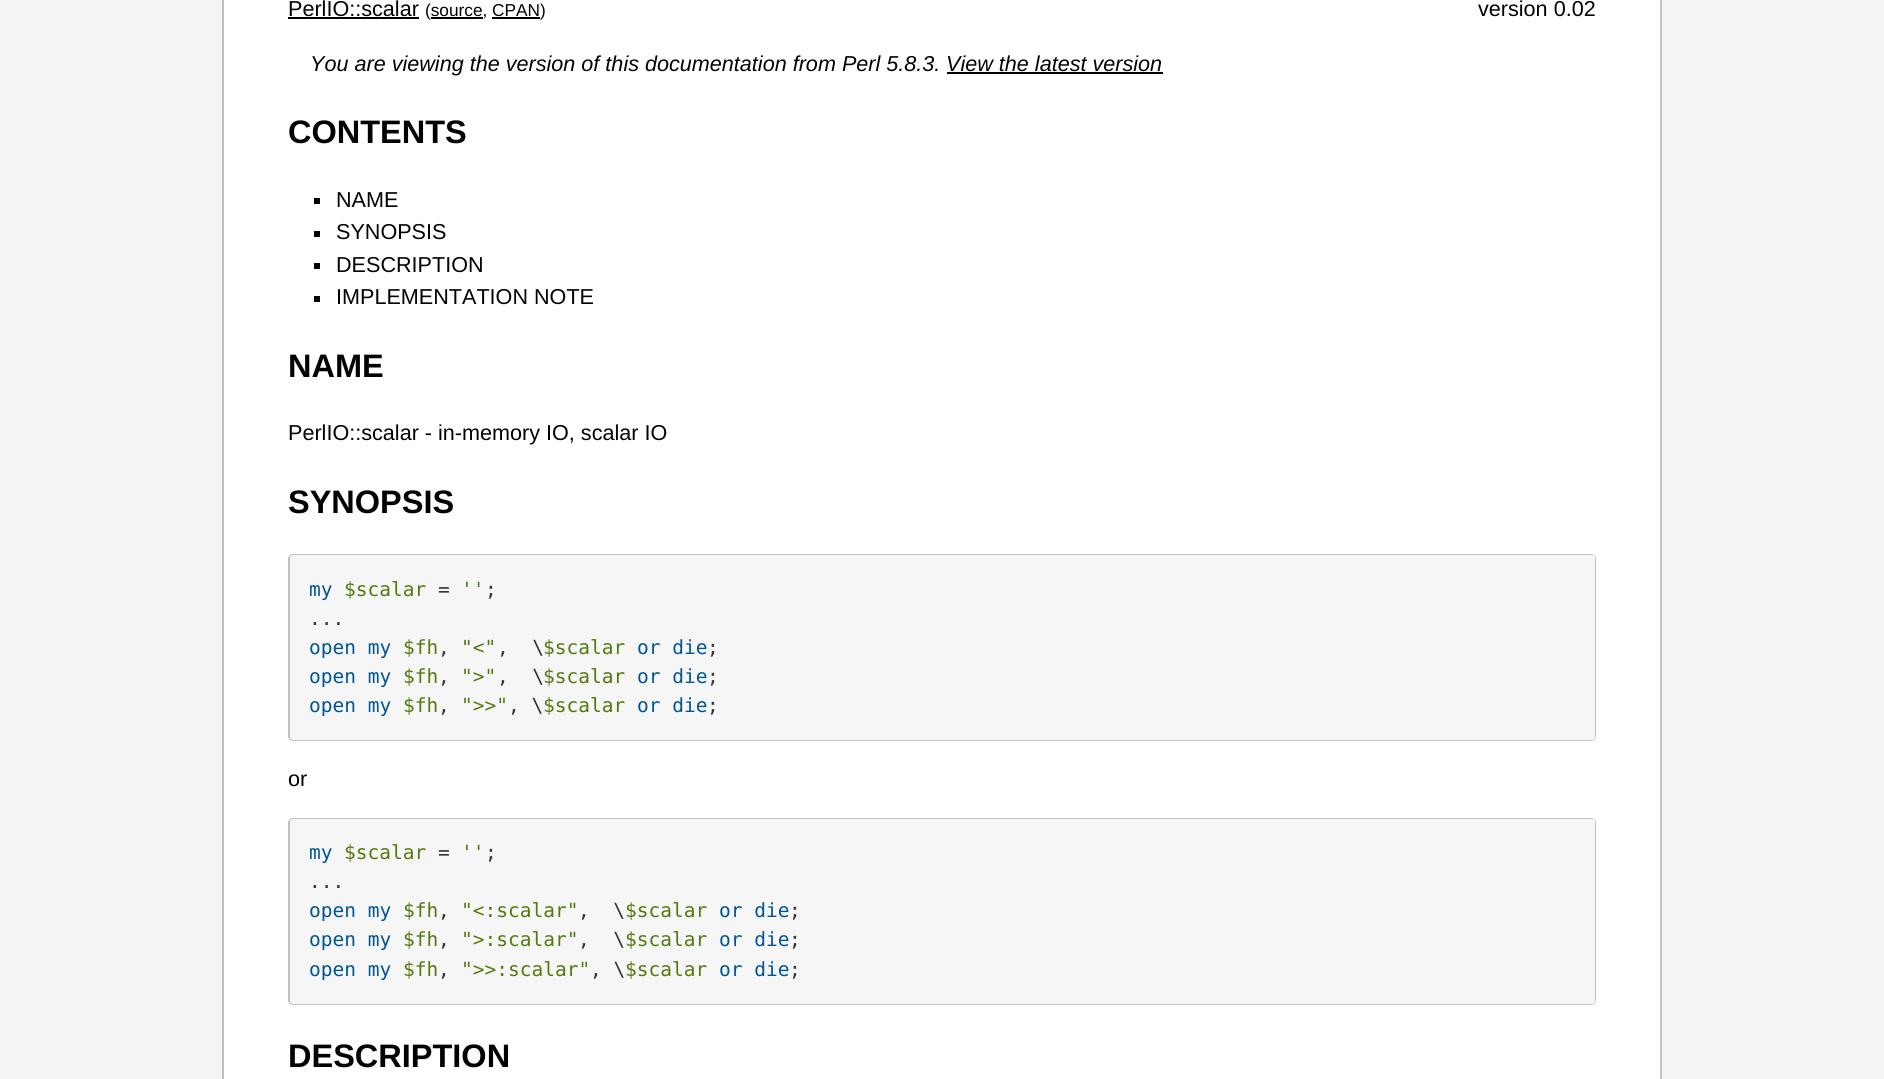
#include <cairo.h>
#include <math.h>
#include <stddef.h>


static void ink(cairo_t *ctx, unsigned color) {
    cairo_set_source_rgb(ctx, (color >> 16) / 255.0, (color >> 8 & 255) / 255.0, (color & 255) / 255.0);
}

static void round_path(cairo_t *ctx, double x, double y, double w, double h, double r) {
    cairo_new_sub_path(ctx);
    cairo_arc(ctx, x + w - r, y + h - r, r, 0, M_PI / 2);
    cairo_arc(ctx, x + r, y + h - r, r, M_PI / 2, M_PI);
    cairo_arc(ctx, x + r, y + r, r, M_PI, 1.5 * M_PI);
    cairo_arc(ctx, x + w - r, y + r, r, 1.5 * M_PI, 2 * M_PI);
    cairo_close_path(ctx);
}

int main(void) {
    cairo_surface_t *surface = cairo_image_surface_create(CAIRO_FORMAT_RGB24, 1884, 1079);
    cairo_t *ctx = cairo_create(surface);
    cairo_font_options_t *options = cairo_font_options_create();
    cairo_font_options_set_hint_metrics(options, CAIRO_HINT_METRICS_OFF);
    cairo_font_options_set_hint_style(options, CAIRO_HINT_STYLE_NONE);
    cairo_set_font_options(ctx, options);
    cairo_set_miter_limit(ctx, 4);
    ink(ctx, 0xF4F4F5);
    cairo_paint(ctx);
    ink(ctx, 0xFFFFFF);
    cairo_rectangle(ctx, 223, -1, 1438, 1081);
    cairo_fill_preserve(ctx);
    ink(ctx, 0xC1C1C1);
    cairo_stroke(ctx);
    cairo_select_font_face(ctx, "Liberation Sans", CAIRO_FONT_SLANT_NORMAL, CAIRO_FONT_WEIGHT_NORMAL);
    cairo_set_font_size(ctx, 21.6);
    ink(ctx, 0x020202);
    cairo_move_to(ctx, 288, 16);
    cairo_show_text(ctx, "PerlIO::scalar");
    cairo_rectangle(ctx, 288, 17, 131, 2);
    cairo_fill(ctx);
    cairo_set_font_size(ctx, 17.25);
    cairo_move_to(ctx, 425, 16);
    cairo_show_text(ctx, "(source, CPAN)");
    cairo_rectangle(ctx, 431, 17, 52, 2);
    cairo_fill(ctx);
    cairo_rectangle(ctx, 492, 17, 48, 2);
    cairo_fill(ctx);
    cairo_set_font_size(ctx, 21.6);
    cairo_move_to(ctx, 1478, 16);
    cairo_show_text(ctx, "version 0.02");
    cairo_select_font_face(ctx, "Liberation Sans", CAIRO_FONT_SLANT_ITALIC, CAIRO_FONT_WEIGHT_NORMAL);
    cairo_move_to(ctx, 310, 71);
    cairo_show_text(ctx, "You are viewing the version of this documentation from Perl 5.8.3.");
    cairo_move_to(ctx, 946, 71);
    cairo_show_text(ctx, "View the latest version");
    cairo_rectangle(ctx, 947, 72, 216, 2);
    cairo_fill(ctx);
    cairo_select_font_face(ctx, "Liberation Sans", CAIRO_FONT_SLANT_NORMAL, CAIRO_FONT_WEIGHT_BOLD);
    cairo_set_font_size(ctx, 32.5);
    cairo_move_to(ctx, 288, 143);
    cairo_show_text(ctx, "CONTENTS");
    cairo_rectangle(ctx, 314, 198, 6, 6);
    cairo_fill(ctx);
    cairo_select_font_face(ctx, "Liberation Sans", CAIRO_FONT_SLANT_NORMAL, CAIRO_FONT_WEIGHT_NORMAL);
    cairo_set_font_size(ctx, 21.6);
    cairo_move_to(ctx, 336, 207);
    cairo_show_text(ctx, "NAME");
    cairo_rectangle(ctx, 314, 231, 6, 6);
    cairo_fill(ctx);
    cairo_move_to(ctx, 336, 239);
    cairo_show_text(ctx, "SYNOPSIS");
    cairo_rectangle(ctx, 314, 263, 6, 6);
    cairo_fill(ctx);
    cairo_move_to(ctx, 336, 272);
    cairo_show_text(ctx, "DESCRIPTION");
    cairo_rectangle(ctx, 314, 296, 6, 6);
    cairo_fill(ctx);
    cairo_move_to(ctx, 336, 304);
    cairo_show_text(ctx, "IMPLEMENTATION NOTE");
    cairo_select_font_face(ctx, "Liberation Sans", CAIRO_FONT_SLANT_NORMAL, CAIRO_FONT_WEIGHT_BOLD);
    cairo_set_font_size(ctx, 32.5);
    cairo_move_to(ctx, 288, 377);
    cairo_show_text(ctx, "NAME");
    cairo_select_font_face(ctx, "Liberation Sans", CAIRO_FONT_SLANT_NORMAL, CAIRO_FONT_WEIGHT_NORMAL);
    cairo_set_font_size(ctx, 21.6);
    cairo_move_to(ctx, 288, 440);
    cairo_show_text(ctx, "PerlIO::scalar - in-memory IO, scalar IO");
    cairo_select_font_face(ctx, "Liberation Sans", CAIRO_FONT_SLANT_NORMAL, CAIRO_FONT_WEIGHT_BOLD);
    cairo_set_font_size(ctx, 32.5);
    cairo_move_to(ctx, 288, 513);
    cairo_show_text(ctx, "SYNOPSIS");
    round_path(ctx, 289, 555, 1306, 185, 4);
    ink(ctx, 0xC1C1C1);
    cairo_stroke(ctx);
    ink(ctx, 0xF6F6F6);
    round_path(ctx, 290, 555, 1305, 185, 3);
    cairo_fill(ctx);
    cairo_select_font_face(ctx, "DejaVu Sans Mono", CAIRO_FONT_SLANT_NORMAL, CAIRO_FONT_WEIGHT_NORMAL);
    cairo_set_font_size(ctx, 19.5);
    ink(ctx, 0x015692);
    cairo_move_to(ctx, 309, 596);
    cairo_show_text(ctx, "my");
    ink(ctx, 0x54790D);
    cairo_move_to(ctx, 344, 596);
    cairo_show_text(ctx, "$scalar");
    ink(ctx, 0x2F3337);
    cairo_move_to(ctx, 438, 596);
    cairo_show_text(ctx, "=");
    ink(ctx, 0x54790D);
    cairo_move_to(ctx, 461, 596);
    cairo_show_text(ctx, "''");
    ink(ctx, 0x2F3337);
    cairo_move_to(ctx, 485, 596);
    cairo_show_text(ctx, ";");
    cairo_move_to(ctx, 309, 625);
    cairo_show_text(ctx, "...");
    ink(ctx, 0x015692);
    cairo_move_to(ctx, 309, 654);
    cairo_show_text(ctx, "open my");
    ink(ctx, 0x54790D);
    cairo_move_to(ctx, 403, 654);
    cairo_show_text(ctx, "$fh");
    ink(ctx, 0x2F3337);
    cairo_move_to(ctx, 438, 654);
    cairo_show_text(ctx, ",");
    ink(ctx, 0x54790D);
    cairo_move_to(ctx, 461, 654);
    cairo_show_text(ctx, "\"<\"");
    ink(ctx, 0x2F3337);
    cairo_move_to(ctx, 497, 654);
    cairo_show_text(ctx, ",  \\");
    ink(ctx, 0x54790D);
    cairo_move_to(ctx, 543, 654);
    cairo_show_text(ctx, "$scalar");
    ink(ctx, 0x015692);
    cairo_move_to(ctx, 637, 654);
    cairo_show_text(ctx, "or die");
    ink(ctx, 0x2F3337);
    cairo_move_to(ctx, 707, 654);
    cairo_show_text(ctx, ";");
    ink(ctx, 0x015692);
    cairo_move_to(ctx, 309, 683);
    cairo_show_text(ctx, "open my");
    ink(ctx, 0x54790D);
    cairo_move_to(ctx, 403, 683);
    cairo_show_text(ctx, "$fh");
    ink(ctx, 0x2F3337);
    cairo_move_to(ctx, 438, 683);
    cairo_show_text(ctx, ",");
    ink(ctx, 0x54790D);
    cairo_move_to(ctx, 461, 683);
    cairo_show_text(ctx, "\">\"");
    ink(ctx, 0x2F3337);
    cairo_move_to(ctx, 497, 683);
    cairo_show_text(ctx, ",  \\");
    ink(ctx, 0x54790D);
    cairo_move_to(ctx, 543, 683);
    cairo_show_text(ctx, "$scalar");
    ink(ctx, 0x015692);
    cairo_move_to(ctx, 637, 683);
    cairo_show_text(ctx, "or die");
    ink(ctx, 0x2F3337);
    cairo_move_to(ctx, 707, 683);
    cairo_show_text(ctx, ";");
    ink(ctx, 0x015692);
    cairo_move_to(ctx, 309, 712);
    cairo_show_text(ctx, "open my");
    ink(ctx, 0x54790D);
    cairo_move_to(ctx, 403, 712);
    cairo_show_text(ctx, "$fh");
    ink(ctx, 0x2F3337);
    cairo_move_to(ctx, 438, 712);
    cairo_show_text(ctx, ",");
    ink(ctx, 0x54790D);
    cairo_move_to(ctx, 461, 712);
    cairo_show_text(ctx, "\">>\"");
    ink(ctx, 0x2F3337);
    cairo_move_to(ctx, 508, 712);
    cairo_show_text(ctx, ", \\");
    ink(ctx, 0x54790D);
    cairo_move_to(ctx, 543, 712);
    cairo_show_text(ctx, "$scalar");
    ink(ctx, 0x015692);
    cairo_move_to(ctx, 637, 712);
    cairo_show_text(ctx, "or die");
    ink(ctx, 0x2F3337);
    cairo_move_to(ctx, 707, 712);
    cairo_show_text(ctx, ";");
    cairo_select_font_face(ctx, "Liberation Sans", CAIRO_FONT_SLANT_NORMAL, CAIRO_FONT_WEIGHT_NORMAL);
    cairo_set_font_size(ctx, 21.6);
    ink(ctx, 0x020202);
    cairo_move_to(ctx, 288, 786);
    cairo_show_text(ctx, "or");
    round_path(ctx, 289, 819, 1306, 185, 4);
    ink(ctx, 0xC1C1C1);
    cairo_stroke(ctx);
    ink(ctx, 0xF6F6F6);
    round_path(ctx, 290, 819, 1305, 185, 3);
    cairo_fill(ctx);
    cairo_select_font_face(ctx, "DejaVu Sans Mono", CAIRO_FONT_SLANT_NORMAL, CAIRO_FONT_WEIGHT_NORMAL);
    cairo_set_font_size(ctx, 19.5);
    ink(ctx, 0x015692);
    cairo_move_to(ctx, 309, 859);
    cairo_show_text(ctx, "my");
    ink(ctx, 0x54790D);
    cairo_move_to(ctx, 344, 859);
    cairo_show_text(ctx, "$scalar");
    ink(ctx, 0x2F3337);
    cairo_move_to(ctx, 438, 859);
    cairo_show_text(ctx, "=");
    ink(ctx, 0x54790D);
    cairo_move_to(ctx, 461, 859);
    cairo_show_text(ctx, "''");
    ink(ctx, 0x2F3337);
    cairo_move_to(ctx, 485, 859);
    cairo_show_text(ctx, ";");
    cairo_move_to(ctx, 309, 888);
    cairo_show_text(ctx, "...");
    ink(ctx, 0x015692);
    cairo_move_to(ctx, 309, 917);
    cairo_show_text(ctx, "open my");
    ink(ctx, 0x54790D);
    cairo_move_to(ctx, 403, 917);
    cairo_show_text(ctx, "$fh");
    ink(ctx, 0x2F3337);
    cairo_move_to(ctx, 438, 917);
    cairo_show_text(ctx, ",");
    ink(ctx, 0x54790D);
    cairo_move_to(ctx, 461, 917);
    cairo_show_text(ctx, "\"<:scalar\"");
    ink(ctx, 0x2F3337);
    cairo_move_to(ctx, 578, 917);
    cairo_show_text(ctx, ",  \\");
    ink(ctx, 0x54790D);
    cairo_move_to(ctx, 625, 917);
    cairo_show_text(ctx, "$scalar");
    ink(ctx, 0x015692);
    cairo_move_to(ctx, 719, 917);
    cairo_show_text(ctx, "or die");
    ink(ctx, 0x2F3337);
    cairo_move_to(ctx, 789, 917);
    cairo_show_text(ctx, ";");
    ink(ctx, 0x015692);
    cairo_move_to(ctx, 309, 946);
    cairo_show_text(ctx, "open my");
    ink(ctx, 0x54790D);
    cairo_move_to(ctx, 403, 946);
    cairo_show_text(ctx, "$fh");
    ink(ctx, 0x2F3337);
    cairo_move_to(ctx, 438, 946);
    cairo_show_text(ctx, ",");
    ink(ctx, 0x54790D);
    cairo_move_to(ctx, 461, 946);
    cairo_show_text(ctx, "\">:scalar\"");
    ink(ctx, 0x2F3337);
    cairo_move_to(ctx, 578, 946);
    cairo_show_text(ctx, ",  \\");
    ink(ctx, 0x54790D);
    cairo_move_to(ctx, 625, 946);
    cairo_show_text(ctx, "$scalar");
    ink(ctx, 0x015692);
    cairo_move_to(ctx, 719, 946);
    cairo_show_text(ctx, "or die");
    ink(ctx, 0x2F3337);
    cairo_move_to(ctx, 789, 946);
    cairo_show_text(ctx, ";");
    ink(ctx, 0x015692);
    cairo_move_to(ctx, 309, 976);
    cairo_show_text(ctx, "open my");
    ink(ctx, 0x54790D);
    cairo_move_to(ctx, 403, 976);
    cairo_show_text(ctx, "$fh");
    ink(ctx, 0x2F3337);
    cairo_move_to(ctx, 438, 976);
    cairo_show_text(ctx, ",");
    ink(ctx, 0x54790D);
    cairo_move_to(ctx, 461, 976);
    cairo_show_text(ctx, "\">>:scalar\"");
    ink(ctx, 0x2F3337);
    cairo_move_to(ctx, 590, 976);
    cairo_show_text(ctx, ", \\");
    ink(ctx, 0x54790D);
    cairo_move_to(ctx, 625, 976);
    cairo_show_text(ctx, "$scalar");
    ink(ctx, 0x015692);
    cairo_move_to(ctx, 719, 976);
    cairo_show_text(ctx, "or die");
    ink(ctx, 0x2F3337);
    cairo_move_to(ctx, 789, 976);
    cairo_show_text(ctx, ";");
    cairo_select_font_face(ctx, "Liberation Sans", CAIRO_FONT_SLANT_NORMAL, CAIRO_FONT_WEIGHT_BOLD);
    cairo_set_font_size(ctx, 32.5);
    ink(ctx, 0x020202);
    cairo_move_to(ctx, 288, 1067);
    cairo_show_text(ctx, "DESCRIPTION");
    cairo_surface_write_to_png(surface, "image.png");
    cairo_font_options_destroy(options);
    cairo_destroy(ctx);
    cairo_surface_destroy(surface);
    return 0;
}
